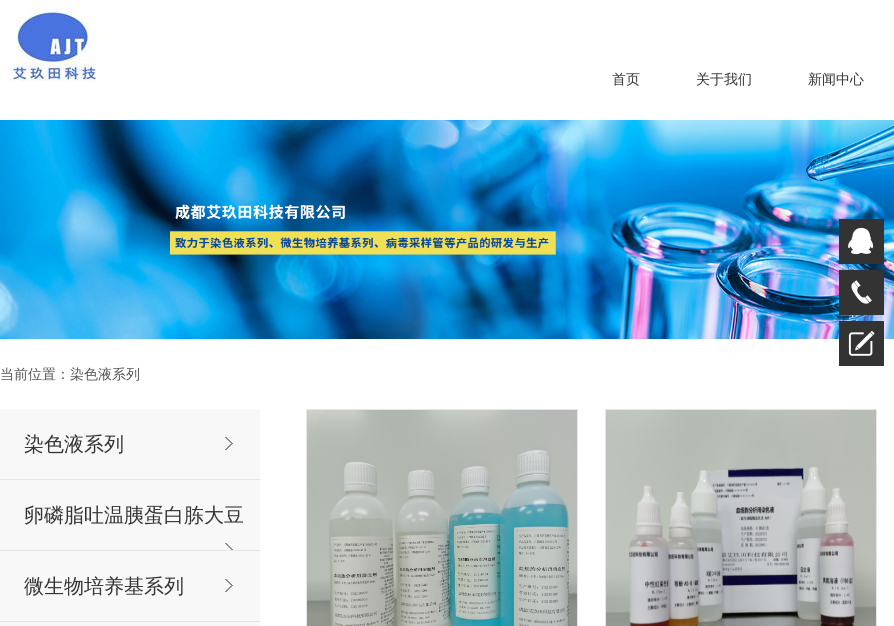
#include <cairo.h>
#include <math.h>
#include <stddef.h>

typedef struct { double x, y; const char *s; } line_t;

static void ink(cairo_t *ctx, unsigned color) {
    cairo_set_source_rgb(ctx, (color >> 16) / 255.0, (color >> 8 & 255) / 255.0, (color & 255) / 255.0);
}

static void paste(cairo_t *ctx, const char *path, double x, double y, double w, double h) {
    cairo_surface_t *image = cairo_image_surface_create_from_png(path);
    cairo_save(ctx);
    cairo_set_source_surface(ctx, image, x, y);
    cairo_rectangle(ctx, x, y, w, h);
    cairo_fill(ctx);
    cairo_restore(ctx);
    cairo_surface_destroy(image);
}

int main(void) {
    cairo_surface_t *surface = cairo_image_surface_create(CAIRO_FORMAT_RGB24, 894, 626);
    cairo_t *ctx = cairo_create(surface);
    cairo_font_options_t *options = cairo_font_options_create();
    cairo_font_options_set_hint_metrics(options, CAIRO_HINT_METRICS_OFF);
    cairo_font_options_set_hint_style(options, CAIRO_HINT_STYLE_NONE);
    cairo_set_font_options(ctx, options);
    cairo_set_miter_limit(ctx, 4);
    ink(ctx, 0xFFFFFF);
    cairo_paint(ctx);
    paste(ctx, "media/1.png", 0, 1, 96, 81);
    cairo_select_font_face(ctx, "WenQuanYi Zen Hei Medium", CAIRO_FONT_SLANT_NORMAL, CAIRO_FONT_WEIGHT_NORMAL);
    cairo_set_font_size(ctx, 14);
    ink(ctx, 0x333333);
    {
        static const line_t items[] = {
            {612, 84, "首页"},
            {696, 84, "关于我们"},
            {808, 84, "新闻中心"},
        };
        for (size_t i = 0; i < sizeof items / sizeof *items; i++) {
            cairo_move_to(ctx, items[i].x, items[i].y);
            cairo_show_text(ctx, items[i].s);
        }
    }
    paste(ctx, "media/2.png", 0, 120, 894, 219);
    cairo_rectangle(ctx, 839, 219, 45, 45);
    cairo_fill(ctx);
    paste(ctx, "media/3.png", 848, 227, 26, 28);
    cairo_rectangle(ctx, 839, 270, 45, 45);
    cairo_fill(ctx);
    paste(ctx, "media/4.png", 851, 280, 21, 24);
    cairo_rectangle(ctx, 839, 321, 45, 45);
    cairo_fill(ctx);
    paste(ctx, "media/5.png", 848, 331, 27, 25);
    ink(ctx, 0x555555);
    cairo_move_to(ctx, 0, 379);
    cairo_show_text(ctx, "当前位置：染色液系列");
    ink(ctx, 0xF8F8F8);
    cairo_rectangle(ctx, 0, 409, 260, 70);
    cairo_fill(ctx);
    ink(ctx, 0xE5E5E5);
    cairo_rectangle(ctx, 0, 479, 260, 1);
    cairo_fill(ctx);
    paste(ctx, "media/6.png", 225, 437, 8, 13);
    cairo_set_font_size(ctx, 20);
    ink(ctx, 0x333333);
    cairo_move_to(ctx, 24, 451);
    cairo_show_text(ctx, "染色液系列");
    ink(ctx, 0xF8F8F8);
    cairo_rectangle(ctx, 0, 480, 260, 70);
    cairo_fill(ctx);
    ink(ctx, 0xE5E5E5);
    cairo_rectangle(ctx, 0, 550, 260, 1);
    cairo_fill(ctx);
    paste(ctx, "media/7.png", 225, 543, 8, 7);
    ink(ctx, 0x333333);
    cairo_move_to(ctx, 24, 522);
    cairo_show_text(ctx, "卵磷脂吐温胰蛋白胨大豆");
    ink(ctx, 0xF8F8F8);
    cairo_rectangle(ctx, 0, 551, 260, 70);
    cairo_fill(ctx);
    ink(ctx, 0xE5E5E5);
    cairo_rectangle(ctx, 0, 621, 260, 1);
    cairo_fill(ctx);
    paste(ctx, "media/6.png", 225, 579, 8, 13);
    ink(ctx, 0x333333);
    cairo_move_to(ctx, 24, 593);
    cairo_show_text(ctx, "微生物培养基系列");
    ink(ctx, 0xF8F8F8);
    cairo_rectangle(ctx, 0, 622, 260, 4);
    cairo_fill(ctx);
    cairo_rectangle(ctx, 306.5, 409.5, 271, 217);
    ink(ctx, 0xE6E6E6);
    cairo_set_line_width(ctx, 1);
    cairo_stroke(ctx);
    paste(ctx, "media/8.png", 307, 410, 270, 216);
    cairo_rectangle(ctx, 605.5, 409.5, 271, 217);
    cairo_stroke(ctx);
    paste(ctx, "media/9.png", 606, 410, 270, 216);
    cairo_surface_write_to_png(surface, "image.png");
    cairo_font_options_destroy(options);
    cairo_destroy(ctx);
    cairo_surface_destroy(surface);
    return 0;
}
